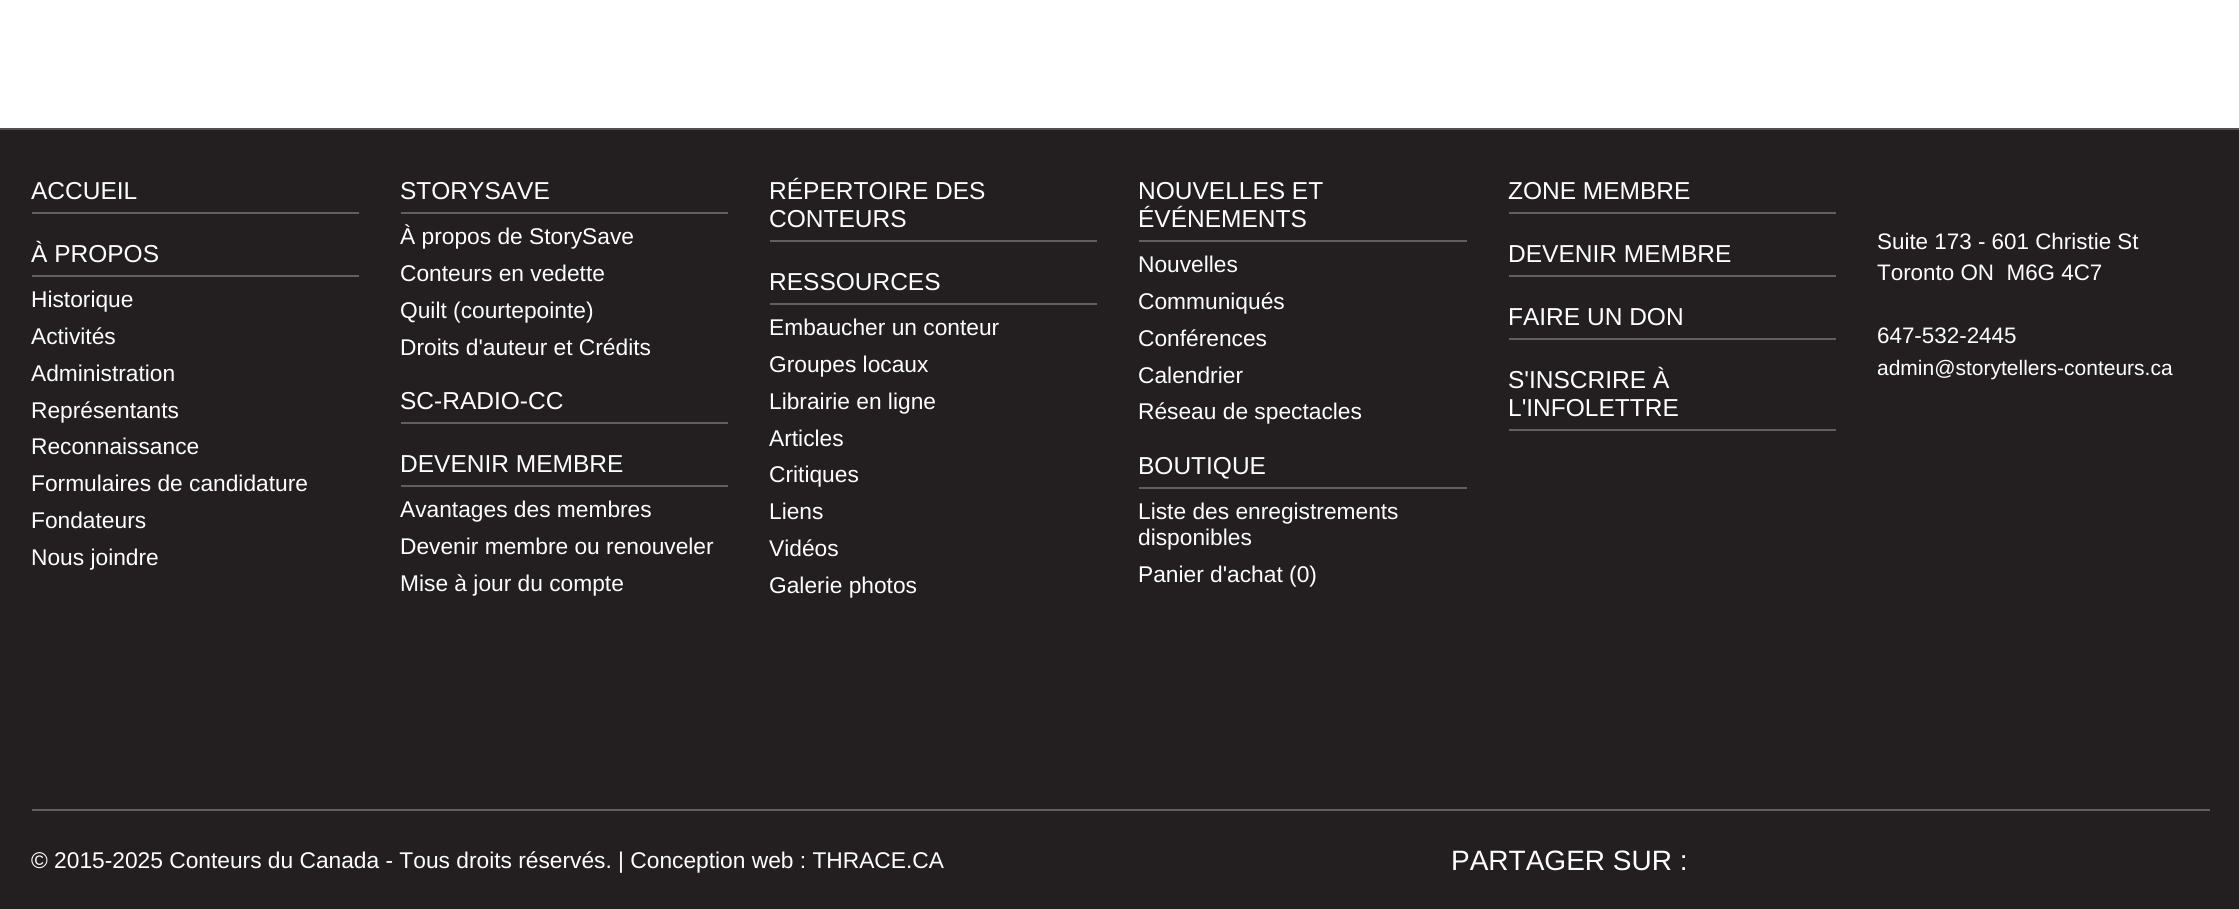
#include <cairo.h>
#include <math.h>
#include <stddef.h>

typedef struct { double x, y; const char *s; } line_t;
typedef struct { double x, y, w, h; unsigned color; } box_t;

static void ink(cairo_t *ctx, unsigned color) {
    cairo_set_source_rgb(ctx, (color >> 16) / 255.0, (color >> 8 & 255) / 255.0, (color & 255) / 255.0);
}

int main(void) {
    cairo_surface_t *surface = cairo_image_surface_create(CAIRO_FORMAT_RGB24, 2239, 909);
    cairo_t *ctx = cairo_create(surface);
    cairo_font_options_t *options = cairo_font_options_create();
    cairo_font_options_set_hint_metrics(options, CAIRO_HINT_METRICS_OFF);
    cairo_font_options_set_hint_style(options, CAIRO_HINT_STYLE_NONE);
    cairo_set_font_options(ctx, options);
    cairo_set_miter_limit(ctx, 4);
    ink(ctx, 0x231F20);
    cairo_paint(ctx);
    {
        static const box_t items[] = {
            {0, 0, 2239, 128, 0xFFFFFF},
            {0, 128, 2239, 2, 0x515151},
            {32, 212, 327, 2, 0x615F60},
        };
        for (size_t i = 0; i < sizeof items / sizeof *items; i++) {
            ink(ctx, items[i].color);
            cairo_rectangle(ctx, items[i].x, items[i].y, items[i].w, items[i].h);
            cairo_fill(ctx);
        }
    }
    cairo_select_font_face(ctx, "Liberation Sans", CAIRO_FONT_SLANT_NORMAL, CAIRO_FONT_WEIGHT_NORMAL);
    cairo_set_font_size(ctx, 24.5);
    ink(ctx, 0xFFFFFF);
    cairo_move_to(ctx, 31, 199);
    cairo_show_text(ctx, "ACCUEIL");
    ink(ctx, 0x615F60);
    cairo_rectangle(ctx, 32, 275, 327, 2);
    cairo_fill(ctx);
    ink(ctx, 0xFFFFFF);
    cairo_move_to(ctx, 31, 262);
    cairo_show_text(ctx, "À PROPOS");
    cairo_set_font_size(ctx, 22.75);
    {
        static const line_t items[] = {
            {31, 307, "Historique"},
            {31, 344, "Activités"},
            {31, 381, "Administration"},
            {31, 418, "Représentants"},
            {31, 454, "Reconnaissance"},
            {31, 491, "Formulaires de candidature"},
            {31, 528, "Fondateurs"},
            {31, 565, "Nous joindre"},
        };
        for (size_t i = 0; i < sizeof items / sizeof *items; i++) {
            cairo_move_to(ctx, items[i].x, items[i].y);
            cairo_show_text(ctx, items[i].s);
        }
    }
    ink(ctx, 0x615F60);
    cairo_rectangle(ctx, 401, 212, 327, 2);
    cairo_fill(ctx);
    cairo_set_font_size(ctx, 24.5);
    ink(ctx, 0xFFFFFF);
    cairo_move_to(ctx, 400, 199);
    cairo_show_text(ctx, "STORYSAVE");
    cairo_set_font_size(ctx, 22.75);
    {
        static const line_t items[] = {
            {400, 244, "À propos de StorySave"},
            {400, 281, "Conteurs en vedette"},
            {400, 318, "Quilt (courtepointe)"},
            {400, 355, "Droits d'auteur et Crédits"},
        };
        for (size_t i = 0; i < sizeof items / sizeof *items; i++) {
            cairo_move_to(ctx, items[i].x, items[i].y);
            cairo_show_text(ctx, items[i].s);
        }
    }
    ink(ctx, 0x615F60);
    cairo_rectangle(ctx, 401, 422, 327, 2);
    cairo_fill(ctx);
    cairo_set_font_size(ctx, 24.5);
    ink(ctx, 0xFFFFFF);
    cairo_move_to(ctx, 400, 409);
    cairo_show_text(ctx, "SC-RADIO-CC");
    ink(ctx, 0x615F60);
    cairo_rectangle(ctx, 401, 485, 327, 2);
    cairo_fill(ctx);
    ink(ctx, 0xFFFFFF);
    cairo_move_to(ctx, 400, 472);
    cairo_show_text(ctx, "DEVENIR MEMBRE");
    cairo_set_font_size(ctx, 22.75);
    {
        static const line_t items[] = {
            {400, 517, "Avantages des membres"},
            {400, 554, "Devenir membre ou renouveler"},
            {400, 591, "Mise à jour du compte"},
        };
        for (size_t i = 0; i < sizeof items / sizeof *items; i++) {
            cairo_move_to(ctx, items[i].x, items[i].y);
            cairo_show_text(ctx, items[i].s);
        }
    }
    ink(ctx, 0x615F60);
    cairo_rectangle(ctx, 770, 240, 327, 2);
    cairo_fill(ctx);
    cairo_set_font_size(ctx, 24.5);
    ink(ctx, 0xFFFFFF);
    cairo_move_to(ctx, 769, 199);
    cairo_show_text(ctx, "RÉPERTOIRE DES");
    cairo_move_to(ctx, 769, 227);
    cairo_show_text(ctx, "CONTEURS");
    ink(ctx, 0x615F60);
    cairo_rectangle(ctx, 770, 303, 327, 2);
    cairo_fill(ctx);
    ink(ctx, 0xFFFFFF);
    cairo_move_to(ctx, 769, 290);
    cairo_show_text(ctx, "RESSOURCES");
    cairo_set_font_size(ctx, 22.75);
    {
        static const line_t items[] = {
            {769, 335, "Embaucher un conteur"},
            {769, 372, "Groupes locaux"},
            {769, 409, "Librairie en ligne"},
            {769, 446, "Articles"},
            {769, 482, "Critiques"},
            {769, 519, "Liens"},
            {769, 556, "Vidéos"},
            {769, 593, "Galerie photos"},
        };
        for (size_t i = 0; i < sizeof items / sizeof *items; i++) {
            cairo_move_to(ctx, items[i].x, items[i].y);
            cairo_show_text(ctx, items[i].s);
        }
    }
    ink(ctx, 0x615F60);
    cairo_rectangle(ctx, 1139, 240, 328, 2);
    cairo_fill(ctx);
    cairo_set_font_size(ctx, 24.5);
    ink(ctx, 0xFFFFFF);
    cairo_move_to(ctx, 1138, 199);
    cairo_show_text(ctx, "NOUVELLES ET");
    cairo_move_to(ctx, 1138, 227);
    cairo_show_text(ctx, "ÉVÉNEMENTS");
    cairo_set_font_size(ctx, 22.75);
    {
        static const line_t items[] = {
            {1138, 272, "Nouvelles"},
            {1138, 309, "Communiqués"},
            {1138, 346, "Conférences"},
            {1138, 383, "Calendrier"},
            {1138, 419, "Réseau de spectacles"},
        };
        for (size_t i = 0; i < sizeof items / sizeof *items; i++) {
            cairo_move_to(ctx, items[i].x, items[i].y);
            cairo_show_text(ctx, items[i].s);
        }
    }
    ink(ctx, 0x615F60);
    cairo_rectangle(ctx, 1139, 487, 328, 2);
    cairo_fill(ctx);
    cairo_set_font_size(ctx, 24.5);
    ink(ctx, 0xFFFFFF);
    cairo_move_to(ctx, 1138, 474);
    cairo_show_text(ctx, "BOUTIQUE");
    cairo_set_font_size(ctx, 22.75);
    {
        static const line_t items[] = {
            {1138, 519, "Liste des enregistrements"},
            {1138, 545, "disponibles"},
            {1138, 582, "Panier d'achat (0)"},
        };
        for (size_t i = 0; i < sizeof items / sizeof *items; i++) {
            cairo_move_to(ctx, items[i].x, items[i].y);
            cairo_show_text(ctx, items[i].s);
        }
    }
    ink(ctx, 0x615F60);
    cairo_rectangle(ctx, 1509, 212, 327, 2);
    cairo_fill(ctx);
    cairo_set_font_size(ctx, 24.5);
    ink(ctx, 0xFFFFFF);
    cairo_move_to(ctx, 1508, 199);
    cairo_show_text(ctx, "ZONE MEMBRE");
    ink(ctx, 0x615F60);
    cairo_rectangle(ctx, 1509, 275, 327, 2);
    cairo_fill(ctx);
    ink(ctx, 0xFFFFFF);
    cairo_move_to(ctx, 1508, 262);
    cairo_show_text(ctx, "DEVENIR MEMBRE");
    ink(ctx, 0x615F60);
    cairo_rectangle(ctx, 1509, 338, 327, 2);
    cairo_fill(ctx);
    ink(ctx, 0xFFFFFF);
    cairo_move_to(ctx, 1508, 325);
    cairo_show_text(ctx, "FAIRE UN DON");
    ink(ctx, 0x615F60);
    cairo_rectangle(ctx, 1509, 429, 327, 2);
    cairo_fill(ctx);
    ink(ctx, 0xFFFFFF);
    cairo_move_to(ctx, 1508, 388);
    cairo_show_text(ctx, "S'INSCRIRE À");
    cairo_move_to(ctx, 1508, 416);
    cairo_show_text(ctx, "L'INFOLETTRE");
    cairo_set_font_size(ctx, 22.4);
    {
        static const line_t items[] = {
            {1877, 249, "Suite 173 - 601 Christie St"},
            {1877, 280, "Toronto ON  M6G 4C7"},
            {1877, 343, "647-532-2445"},
        };
        for (size_t i = 0; i < sizeof items / sizeof *items; i++) {
            cairo_move_to(ctx, items[i].x, items[i].y);
            cairo_show_text(ctx, items[i].s);
        }
    }
    cairo_set_font_size(ctx, 21);
    cairo_move_to(ctx, 1877, 375);
    cairo_show_text(ctx, "admin@storytellers-conteurs.ca");
    ink(ctx, 0x615F60);
    cairo_rectangle(ctx, 32, 809, 2178, 2);
    cairo_fill(ctx);
    cairo_set_font_size(ctx, 22.75);
    ink(ctx, 0xFFFFFF);
    cairo_move_to(ctx, 31, 868);
    cairo_show_text(ctx, "© 2015-2025 Conteurs du Canada - Tous droits réservés. | Conception web : THRACE.CA");
    cairo_set_font_size(ctx, 28);
    cairo_move_to(ctx, 1451, 870);
    cairo_show_text(ctx, "PARTAGER SUR :");
    cairo_surface_write_to_png(surface, "image.png");
    cairo_font_options_destroy(options);
    cairo_destroy(ctx);
    cairo_surface_destroy(surface);
    return 0;
}
